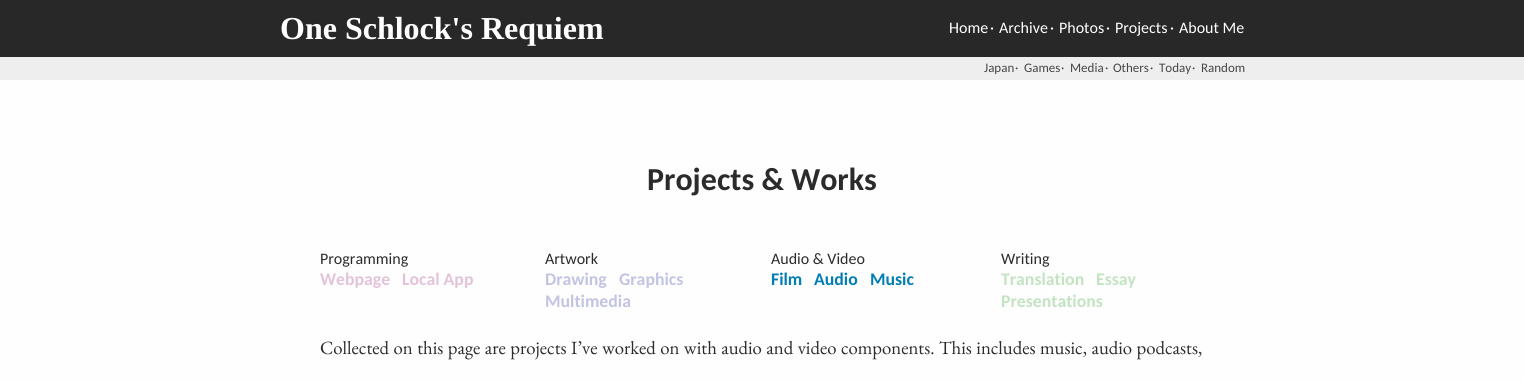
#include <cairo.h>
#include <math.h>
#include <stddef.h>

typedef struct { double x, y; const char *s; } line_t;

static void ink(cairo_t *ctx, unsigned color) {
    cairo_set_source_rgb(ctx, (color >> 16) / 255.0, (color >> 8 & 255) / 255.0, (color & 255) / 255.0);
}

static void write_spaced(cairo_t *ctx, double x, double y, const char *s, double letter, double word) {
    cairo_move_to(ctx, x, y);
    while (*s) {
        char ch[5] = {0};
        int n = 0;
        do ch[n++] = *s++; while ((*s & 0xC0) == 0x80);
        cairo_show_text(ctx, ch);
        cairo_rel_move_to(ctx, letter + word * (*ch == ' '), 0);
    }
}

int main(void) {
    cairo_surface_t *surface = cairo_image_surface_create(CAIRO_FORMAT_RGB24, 1524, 382);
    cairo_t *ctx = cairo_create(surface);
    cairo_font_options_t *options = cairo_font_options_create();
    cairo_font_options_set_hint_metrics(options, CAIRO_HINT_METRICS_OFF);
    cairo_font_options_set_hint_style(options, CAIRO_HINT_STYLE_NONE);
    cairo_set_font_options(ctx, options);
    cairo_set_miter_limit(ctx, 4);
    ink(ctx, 0xEEEEEE);
    cairo_paint(ctx);
    ink(ctx, 0x282828);
    cairo_rectangle(ctx, 0, 0, 1524, 57);
    cairo_fill(ctx);
    cairo_select_font_face(ctx, "Liberation Serif", CAIRO_FONT_SLANT_NORMAL, CAIRO_FONT_WEIGHT_BOLD);
    cairo_set_font_size(ctx, 32);
    ink(ctx, 0xFFFFFF);
    cairo_move_to(ctx, 280, 39);
    cairo_show_text(ctx, "One Schlock's Requiem");
    cairo_select_font_face(ctx, "Carlito", CAIRO_FONT_SLANT_NORMAL, CAIRO_FONT_WEIGHT_NORMAL);
    cairo_set_font_size(ctx, 16);
    {
        static const line_t items[] = {
            {949, 33, "Home"},
            {990, 33, "·"},
            {999, 33, "Archive"},
            {1050, 33, "·"},
            {1059, 33, "Photos"},
            {1106, 33, "·"},
            {1115, 33, "Projects"},
            {1170, 33, "·"},
            {1179, 33, "About Me"},
        };
        for (size_t i = 0; i < sizeof items / sizeof *items; i++) {
            cairo_move_to(ctx, items[i].x, items[i].y);
            cairo_show_text(ctx, items[i].s);
        }
    }
    cairo_set_font_size(ctx, 13);
    ink(ctx, 0x464646);
    {
        static const line_t items[] = {
            {984, 72, "Japan"},
            {1015, 72, "·"},
            {1024, 72, "Games"},
            {1061, 72, "·"},
            {1070, 72, "Media"},
            {1105, 72, "·"},
            {1113, 72, "Others"},
            {1150, 72, "·"},
            {1159, 72, "Today"},
            {1192, 72, "·"},
            {1201, 72, "Random"},
        };
        for (size_t i = 0; i < sizeof items / sizeof *items; i++) {
            cairo_move_to(ctx, items[i].x, items[i].y);
            cairo_show_text(ctx, items[i].s);
        }
    }
    ink(ctx, 0xFEFEFE);
    cairo_rectangle(ctx, 0, 80, 1524, 302);
    cairo_fill(ctx);
    cairo_select_font_face(ctx, "Carlito", CAIRO_FONT_SLANT_NORMAL, CAIRO_FONT_WEIGHT_BOLD);
    cairo_set_font_size(ctx, 32);
    ink(ctx, 0x2B2B2B);
    cairo_move_to(ctx, 647, 190);
    cairo_show_text(ctx, "Projects & Works");
    cairo_select_font_face(ctx, "Carlito", CAIRO_FONT_SLANT_NORMAL, CAIRO_FONT_WEIGHT_NORMAL);
    cairo_set_font_size(ctx, 16);
    cairo_move_to(ctx, 320, 264);
    cairo_show_text(ctx, "Programming");
    cairo_select_font_face(ctx, "Carlito", CAIRO_FONT_SLANT_NORMAL, CAIRO_FONT_WEIGHT_BOLD);
    cairo_set_font_size(ctx, 17.75);
    ink(ctx, 0xE3C3D9);
    cairo_move_to(ctx, 320, 285);
    cairo_show_text(ctx, "Webpage");
    cairo_move_to(ctx, 402, 285);
    cairo_show_text(ctx, "Local App");
    cairo_select_font_face(ctx, "Carlito", CAIRO_FONT_SLANT_NORMAL, CAIRO_FONT_WEIGHT_NORMAL);
    cairo_set_font_size(ctx, 16);
    ink(ctx, 0x2B2B2B);
    cairo_move_to(ctx, 545, 264);
    cairo_show_text(ctx, "Artwork");
    cairo_select_font_face(ctx, "Carlito", CAIRO_FONT_SLANT_NORMAL, CAIRO_FONT_WEIGHT_BOLD);
    cairo_set_font_size(ctx, 17.75);
    ink(ctx, 0xC3C3E3);
    {
        static const line_t items[] = {
            {545, 285, "Drawing"},
            {619, 285, "Graphics"},
            {545, 307, "Multimedia"},
        };
        for (size_t i = 0; i < sizeof items / sizeof *items; i++) {
            cairo_move_to(ctx, items[i].x, items[i].y);
            cairo_show_text(ctx, items[i].s);
        }
    }
    cairo_select_font_face(ctx, "Carlito", CAIRO_FONT_SLANT_NORMAL, CAIRO_FONT_WEIGHT_NORMAL);
    cairo_set_font_size(ctx, 16);
    ink(ctx, 0x2B2B2B);
    cairo_move_to(ctx, 771, 264);
    cairo_show_text(ctx, "Audio & Video");
    cairo_select_font_face(ctx, "Carlito", CAIRO_FONT_SLANT_NORMAL, CAIRO_FONT_WEIGHT_BOLD);
    cairo_set_font_size(ctx, 17.75);
    ink(ctx, 0x007DB3);
    {
        static const line_t items[] = {
            {771, 285, "Film"},
            {814, 285, "Audio"},
            {870, 285, "Music"},
        };
        for (size_t i = 0; i < sizeof items / sizeof *items; i++) {
            cairo_move_to(ctx, items[i].x, items[i].y);
            cairo_show_text(ctx, items[i].s);
        }
    }
    cairo_select_font_face(ctx, "Carlito", CAIRO_FONT_SLANT_NORMAL, CAIRO_FONT_WEIGHT_NORMAL);
    cairo_set_font_size(ctx, 16);
    ink(ctx, 0x2B2B2B);
    cairo_move_to(ctx, 1001, 264);
    cairo_show_text(ctx, "Writing");
    cairo_select_font_face(ctx, "Carlito", CAIRO_FONT_SLANT_NORMAL, CAIRO_FONT_WEIGHT_BOLD);
    cairo_set_font_size(ctx, 17.75);
    ink(ctx, 0xC3E3C3);
    {
        static const line_t items[] = {
            {1001, 285, "Translation"},
            {1096, 285, "Essay"},
            {1001, 307, "Presentations"},
        };
        for (size_t i = 0; i < sizeof items / sizeof *items; i++) {
            cairo_move_to(ctx, items[i].x, items[i].y);
            cairo_show_text(ctx, items[i].s);
        }
    }
    cairo_select_font_face(ctx, "EB Garamond", CAIRO_FONT_SLANT_NORMAL, CAIRO_FONT_WEIGHT_NORMAL);
    cairo_set_font_size(ctx, 18.7);
    ink(ctx, 0x2B2B2B);
    write_spaced(ctx, 320, 354, "Collected on this page are projects I’ve worked on with audio and video components. This includes music, audio podcasts,", 0, 0.75);
    cairo_surface_write_to_png(surface, "image.png");
    cairo_font_options_destroy(options);
    cairo_destroy(ctx);
    cairo_surface_destroy(surface);
    return 0;
}
